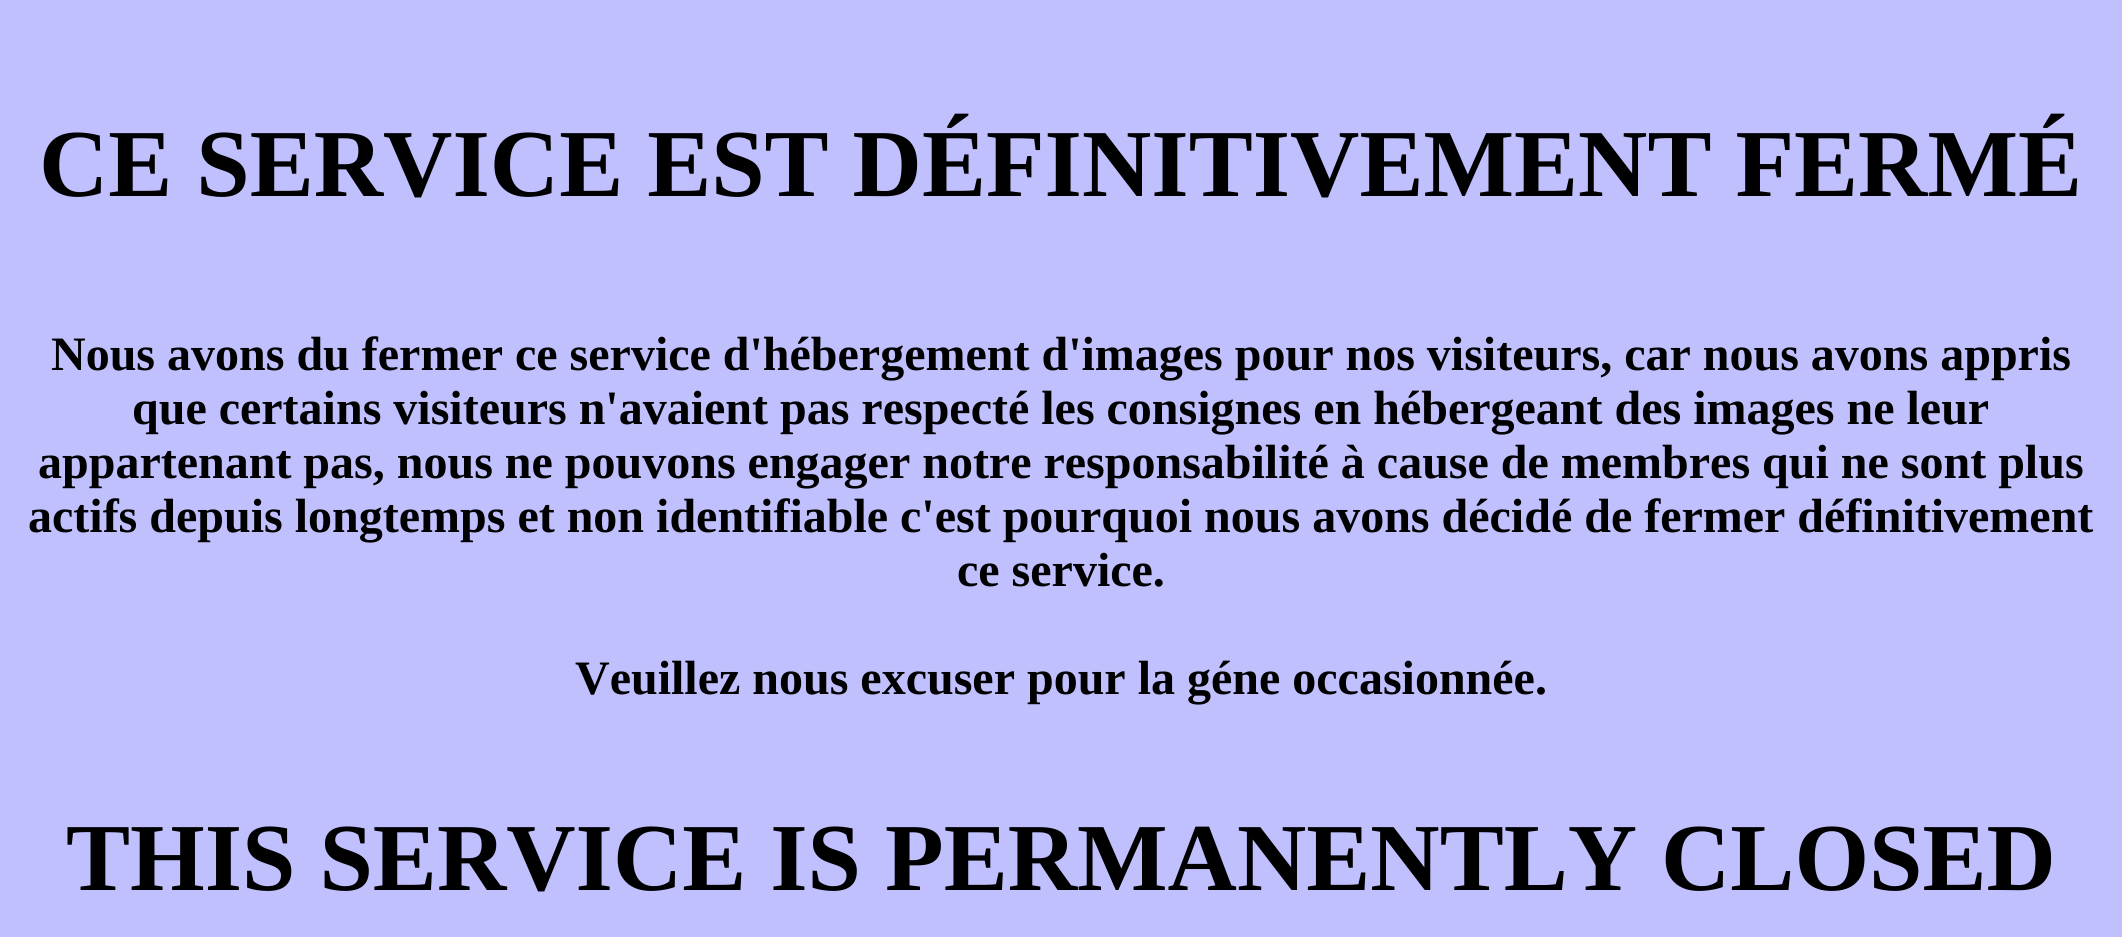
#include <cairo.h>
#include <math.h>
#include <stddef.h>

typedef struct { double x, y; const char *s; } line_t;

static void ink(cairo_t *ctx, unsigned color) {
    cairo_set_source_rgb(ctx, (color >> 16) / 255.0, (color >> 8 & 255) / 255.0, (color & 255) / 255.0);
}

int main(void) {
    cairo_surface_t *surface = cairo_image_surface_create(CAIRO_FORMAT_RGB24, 2122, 937);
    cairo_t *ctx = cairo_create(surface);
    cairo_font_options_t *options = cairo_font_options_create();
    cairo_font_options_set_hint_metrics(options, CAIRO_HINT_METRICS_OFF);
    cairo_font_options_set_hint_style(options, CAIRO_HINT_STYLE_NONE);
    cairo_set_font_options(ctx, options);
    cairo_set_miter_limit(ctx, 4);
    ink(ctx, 0xC0C0FF);
    cairo_paint(ctx);
    cairo_select_font_face(ctx, "Liberation Serif", CAIRO_FONT_SLANT_NORMAL, CAIRO_FONT_WEIGHT_BOLD);
    cairo_set_font_size(ctx, 96);
    ink(ctx, 0x000000);
    cairo_move_to(ctx, 39, 196);
    cairo_show_text(ctx, "CE SERVICE EST DÉFINITIVEMENT FERMÉ");
    cairo_set_font_size(ctx, 48);
    {
        static const line_t items[] = {
            {51, 370, "Nous avons du fermer ce service d'hébergement d'images pour nos visiteurs, car nous avons appris"},
            {132, 424, "que certains visiteurs n'avaient pas respecté les consignes en hébergeant des images ne leur"},
            {38, 478, "appartenant pas, nous ne pouvons engager notre responsabilité à cause de membres qui ne sont plus"},
            {28, 532, "actifs depuis longtemps et non identifiable c'est pourquoi nous avons décidé de fermer définitivement"},
            {957, 586, "ce service."},
            {575, 694, "Veuillez nous excuser pour la géne occasionnée."},
        };
        for (size_t i = 0; i < sizeof items / sizeof *items; i++) {
            cairo_move_to(ctx, items[i].x, items[i].y);
            cairo_show_text(ctx, items[i].s);
        }
    }
    cairo_set_font_size(ctx, 96);
    cairo_move_to(ctx, 66, 890);
    cairo_show_text(ctx, "THIS SERVICE IS PERMANENTLY CLOSED");
    cairo_surface_write_to_png(surface, "image.png");
    cairo_font_options_destroy(options);
    cairo_destroy(ctx);
    cairo_surface_destroy(surface);
    return 0;
}
